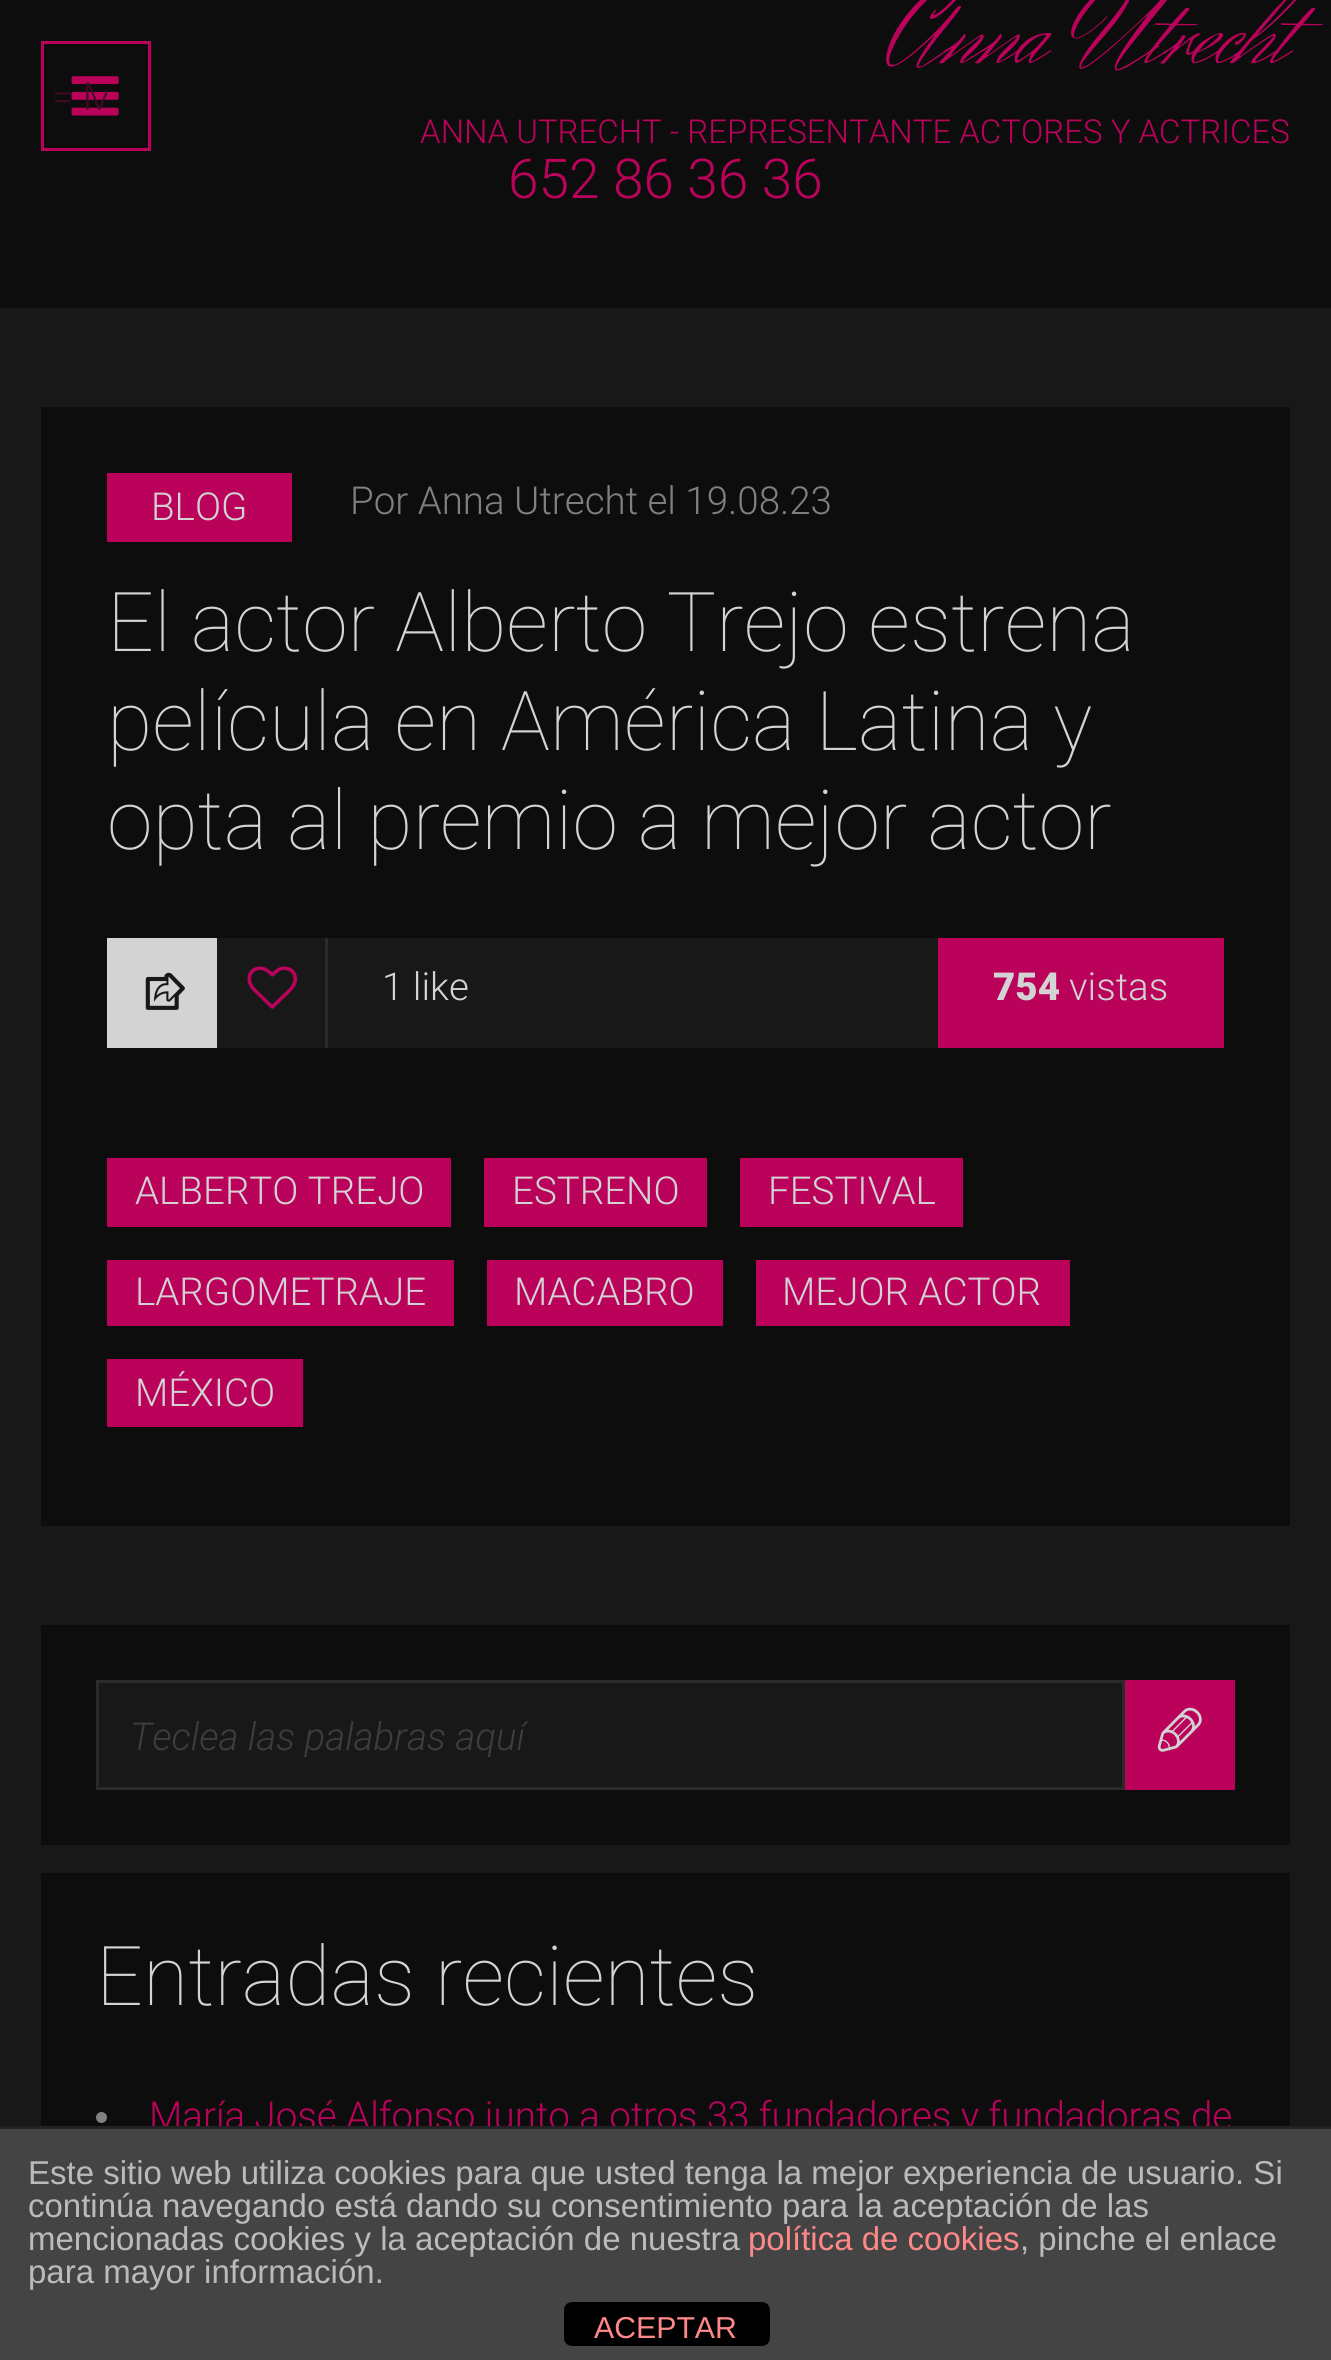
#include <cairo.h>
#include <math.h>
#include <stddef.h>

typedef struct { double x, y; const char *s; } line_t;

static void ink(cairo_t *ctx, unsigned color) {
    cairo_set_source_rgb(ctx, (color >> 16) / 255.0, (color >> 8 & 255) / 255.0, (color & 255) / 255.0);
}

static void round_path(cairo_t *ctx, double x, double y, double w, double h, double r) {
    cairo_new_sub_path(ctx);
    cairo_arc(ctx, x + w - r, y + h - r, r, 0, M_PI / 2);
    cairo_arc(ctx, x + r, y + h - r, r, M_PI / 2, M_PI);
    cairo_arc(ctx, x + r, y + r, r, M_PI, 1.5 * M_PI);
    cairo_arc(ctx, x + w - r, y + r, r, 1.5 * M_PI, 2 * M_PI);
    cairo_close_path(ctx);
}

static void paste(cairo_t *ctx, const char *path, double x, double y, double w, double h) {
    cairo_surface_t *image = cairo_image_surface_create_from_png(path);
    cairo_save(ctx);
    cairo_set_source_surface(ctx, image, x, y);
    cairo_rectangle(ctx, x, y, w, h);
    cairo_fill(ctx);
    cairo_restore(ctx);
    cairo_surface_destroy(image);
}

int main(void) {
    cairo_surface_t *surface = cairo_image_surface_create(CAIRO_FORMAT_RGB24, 1331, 2360);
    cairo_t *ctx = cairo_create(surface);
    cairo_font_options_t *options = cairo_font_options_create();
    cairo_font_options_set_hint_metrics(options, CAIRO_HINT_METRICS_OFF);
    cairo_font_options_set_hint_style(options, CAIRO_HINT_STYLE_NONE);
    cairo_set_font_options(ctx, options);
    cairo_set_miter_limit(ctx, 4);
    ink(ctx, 0x181818);
    cairo_paint(ctx);
    ink(ctx, 0x0D0D0D);
    cairo_rectangle(ctx, 0, 0, 1331, 308);
    cairo_fill(ctx);
    cairo_rectangle(ctx, 42.5, 42.5, 107, 107);
    ink(ctx, 0xBA025B);
    cairo_set_line_width(ctx, 3);
    cairo_stroke(ctx);
    paste(ctx, "media/1.png", 71, 76, 48, 40);
    cairo_save(ctx);
    cairo_rectangle(ctx, 52, 72, 55, 49);
    cairo_clip(ctx);
    cairo_select_font_face(ctx, "Roboto Light", CAIRO_FONT_SLANT_NORMAL, CAIRO_FONT_WEIGHT_NORMAL);
    cairo_set_font_size(ctx, 38.5);
    ink(ctx, 0x420A25);
    cairo_move_to(ctx, 52, 110);
    cairo_show_text(ctx, "= M");
    cairo_restore(ctx);
    cairo_select_font_face(ctx, "Herr Von Muellerhoff", CAIRO_FONT_SLANT_NORMAL, CAIRO_FONT_WEIGHT_NORMAL);
    cairo_set_font_size(ctx, 110);
    cairo_move_to(ctx, 888, 63);
    cairo_show_text(ctx, "Anna Utrecht");
    cairo_select_font_face(ctx, "Roboto Light", CAIRO_FONT_SLANT_NORMAL, CAIRO_FONT_WEIGHT_NORMAL);
    cairo_set_font_size(ctx, 33);
    cairo_move_to(ctx, 420, 143);
    cairo_show_text(ctx, "ANNA UTRECHT - REPRESENTANTE ACTORES Y ACTRICES");
    cairo_set_font_size(ctx, 55);
    cairo_move_to(ctx, 508, 198);
    cairo_show_text(ctx, "652 86 36 36");
    ink(ctx, 0x0D0D0D);
    cairo_rectangle(ctx, 41, 407, 1249, 1119);
    cairo_fill(ctx);
    ink(ctx, 0xBA025B);
    cairo_rectangle(ctx, 107, 473, 185, 69);
    cairo_fill(ctx);
    cairo_set_font_size(ctx, 38.5);
    ink(ctx, 0xD3D3D3);
    cairo_move_to(ctx, 151, 520);
    cairo_show_text(ctx, "BLOG");
    ink(ctx, 0x808080);
    cairo_move_to(ctx, 350, 514);
    cairo_show_text(ctx, "Por Anna Utrecht el 19.08.23");
    cairo_select_font_face(ctx, "Roboto Thin", CAIRO_FONT_SLANT_NORMAL, CAIRO_FONT_WEIGHT_NORMAL);
    cairo_set_font_size(ctx, 82.5);
    ink(ctx, 0xD3D3D3);
    {
        static const line_t items[] = {
            {107, 651, "El actor Alberto Trejo estrena"},
            {107, 750, "película en América Latina y"},
            {107, 849, "opta al premio a mejor actor"},
        };
        for (size_t i = 0; i < sizeof items / sizeof *items; i++) {
            cairo_move_to(ctx, items[i].x, items[i].y);
            cairo_show_text(ctx, items[i].s);
        }
    }
    ink(ctx, 0x181818);
    cairo_rectangle(ctx, 217, 938, 721, 110);
    cairo_fill(ctx);
    ink(ctx, 0xD3D3D3);
    cairo_rectangle(ctx, 107, 938, 110, 110);
    cairo_fill(ctx);
    paste(ctx, "media/2.png", 145, 972, 40, 38);
    ink(ctx, 0x2B2B2B);
    cairo_rectangle(ctx, 325, 938, 3, 110);
    cairo_fill(ctx);
    paste(ctx, "media/3.png", 247, 966, 50, 43);
    cairo_select_font_face(ctx, "Roboto Light", CAIRO_FONT_SLANT_NORMAL, CAIRO_FONT_WEIGHT_NORMAL);
    cairo_set_font_size(ctx, 38.5);
    ink(ctx, 0xD3D3D3);
    cairo_move_to(ctx, 382, 1000);
    cairo_show_text(ctx, "1 like");
    ink(ctx, 0xBA025B);
    cairo_rectangle(ctx, 938, 938, 286, 110);
    cairo_fill(ctx);
    cairo_select_font_face(ctx, "Roboto Black", CAIRO_FONT_SLANT_NORMAL, CAIRO_FONT_WEIGHT_NORMAL);
    ink(ctx, 0xD3D3D3);
    cairo_move_to(ctx, 993, 1000);
    cairo_show_text(ctx, "754");
    cairo_select_font_face(ctx, "Roboto Light", CAIRO_FONT_SLANT_NORMAL, CAIRO_FONT_WEIGHT_NORMAL);
    cairo_move_to(ctx, 1069, 1000);
    cairo_show_text(ctx, "vistas");
    ink(ctx, 0xBA025B);
    cairo_rectangle(ctx, 107, 1158, 344, 69);
    cairo_fill(ctx);
    ink(ctx, 0xD3D3D3);
    cairo_move_to(ctx, 135, 1204);
    cairo_show_text(ctx, "ALBERTO TREJO");
    ink(ctx, 0xBA025B);
    cairo_rectangle(ctx, 484, 1158, 223, 69);
    cairo_fill(ctx);
    ink(ctx, 0xD3D3D3);
    cairo_move_to(ctx, 512, 1204);
    cairo_show_text(ctx, "ESTRENO");
    ink(ctx, 0xBA025B);
    cairo_rectangle(ctx, 740, 1158, 223, 69);
    cairo_fill(ctx);
    ink(ctx, 0xD3D3D3);
    cairo_move_to(ctx, 768, 1204);
    cairo_show_text(ctx, "FESTIVAL");
    ink(ctx, 0xBA025B);
    cairo_rectangle(ctx, 107, 1260, 347, 66);
    cairo_fill(ctx);
    ink(ctx, 0xD3D3D3);
    cairo_move_to(ctx, 135, 1305);
    cairo_show_text(ctx, "LARGOMETRAJE");
    ink(ctx, 0xBA025B);
    cairo_rectangle(ctx, 487, 1260, 236, 66);
    cairo_fill(ctx);
    ink(ctx, 0xD3D3D3);
    cairo_move_to(ctx, 514, 1305);
    cairo_show_text(ctx, "MACABRO");
    ink(ctx, 0xBA025B);
    cairo_rectangle(ctx, 756, 1260, 314, 66);
    cairo_fill(ctx);
    ink(ctx, 0xD3D3D3);
    cairo_move_to(ctx, 782, 1305);
    cairo_show_text(ctx, "MEJOR ACTOR");
    ink(ctx, 0xBA025B);
    cairo_rectangle(ctx, 107, 1359, 196, 68);
    cairo_fill(ctx);
    ink(ctx, 0xD3D3D3);
    cairo_move_to(ctx, 135, 1406);
    cairo_show_text(ctx, "MÉXICO");
    ink(ctx, 0x0D0D0D);
    cairo_rectangle(ctx, 41, 1625, 1249, 220);
    cairo_fill(ctx);
    ink(ctx, 0x181818);
    cairo_rectangle(ctx, 97.5, 1681.5, 1026, 107);
    cairo_fill_preserve(ctx);
    ink(ctx, 0x2B2B2B);
    cairo_stroke(ctx);
    cairo_save(ctx);
    cairo_rectangle(ctx, 129, 1713, 952, 44);
    cairo_clip(ctx);
    cairo_select_font_face(ctx, "Roboto Light", CAIRO_FONT_SLANT_ITALIC, CAIRO_FONT_WEIGHT_NORMAL);
    ink(ctx, 0x3D3D3D);
    cairo_move_to(ctx, 130, 1750);
    cairo_show_text(ctx, "Teclea las palabras aquí");
    cairo_restore(ctx);
    ink(ctx, 0xBA025B);
    cairo_rectangle(ctx, 1125, 1680, 110, 110);
    cairo_fill(ctx);
    paste(ctx, "media/4.png", 1157, 1707, 45, 45);
    ink(ctx, 0x0D0D0D);
    cairo_rectangle(ctx, 41, 1873, 1249, 253);
    cairo_fill(ctx);
    cairo_select_font_face(ctx, "Roboto Thin", CAIRO_FONT_SLANT_NORMAL, CAIRO_FONT_WEIGHT_NORMAL);
    cairo_set_font_size(ctx, 82.5);
    ink(ctx, 0xD3D3D3);
    cairo_move_to(ctx, 96, 2005);
    cairo_show_text(ctx, "Entradas recientes");
    ink(ctx, 0x808080);
    cairo_new_path(ctx);
    cairo_arc(ctx, 101.5, 2117.5, 5.5, 0, 2 * M_PI);
    cairo_fill(ctx);
    cairo_select_font_face(ctx, "Roboto Light", CAIRO_FONT_SLANT_NORMAL, CAIRO_FONT_WEIGHT_NORMAL);
    cairo_set_font_size(ctx, 38.5);
    ink(ctx, 0xBA025B);
    cairo_move_to(ctx, 149, 2129);
    cairo_show_text(ctx, "María José Alfonso junto a otros 33 fundadores y fundadoras de");
    ink(ctx, 0x444444);
    cairo_rectangle(ctx, 0, 2129, 1331, 231);
    cairo_fill(ctx);
    ink(ctx, 0x222222);
    cairo_rectangle(ctx, 0, 2126, 1331, 3);
    cairo_fill(ctx);
    cairo_select_font_face(ctx, "Liberation Sans", CAIRO_FONT_SLANT_NORMAL, CAIRO_FONT_WEIGHT_NORMAL);
    cairo_set_font_size(ctx, 33);
    ink(ctx, 0xBBBBBB);
    {
        static const line_t items[] = {
            {28, 2184, "Este sitio web utiliza cookies para que usted tenga la mejor experiencia de usuario. Si"},
            {28, 2217, "continúa navegando está dando su consentimiento para la aceptación de las"},
            {28, 2250, "mencionadas cookies y la aceptación de nuestra"},
        };
        for (size_t i = 0; i < sizeof items / sizeof *items; i++) {
            cairo_move_to(ctx, items[i].x, items[i].y);
            cairo_show_text(ctx, items[i].s);
        }
    }
    ink(ctx, 0xFF8888);
    cairo_move_to(ctx, 748, 2250);
    cairo_show_text(ctx, "política de cookies");
    ink(ctx, 0xBBBBBB);
    cairo_move_to(ctx, 1020, 2250);
    cairo_show_text(ctx, ", pinche el enlace");
    cairo_move_to(ctx, 28, 2283);
    cairo_show_text(ctx, "para mayor información.");
    ink(ctx, 0x000000);
    round_path(ctx, 564, 2302, 206, 44, 8);
    cairo_fill(ctx);
    cairo_set_font_size(ctx, 30.25);
    ink(ctx, 0xFF8888);
    cairo_move_to(ctx, 594, 2338);
    cairo_show_text(ctx, "ACEPTAR");
    cairo_surface_write_to_png(surface, "image.png");
    cairo_font_options_destroy(options);
    cairo_destroy(ctx);
    cairo_surface_destroy(surface);
    return 0;
}
